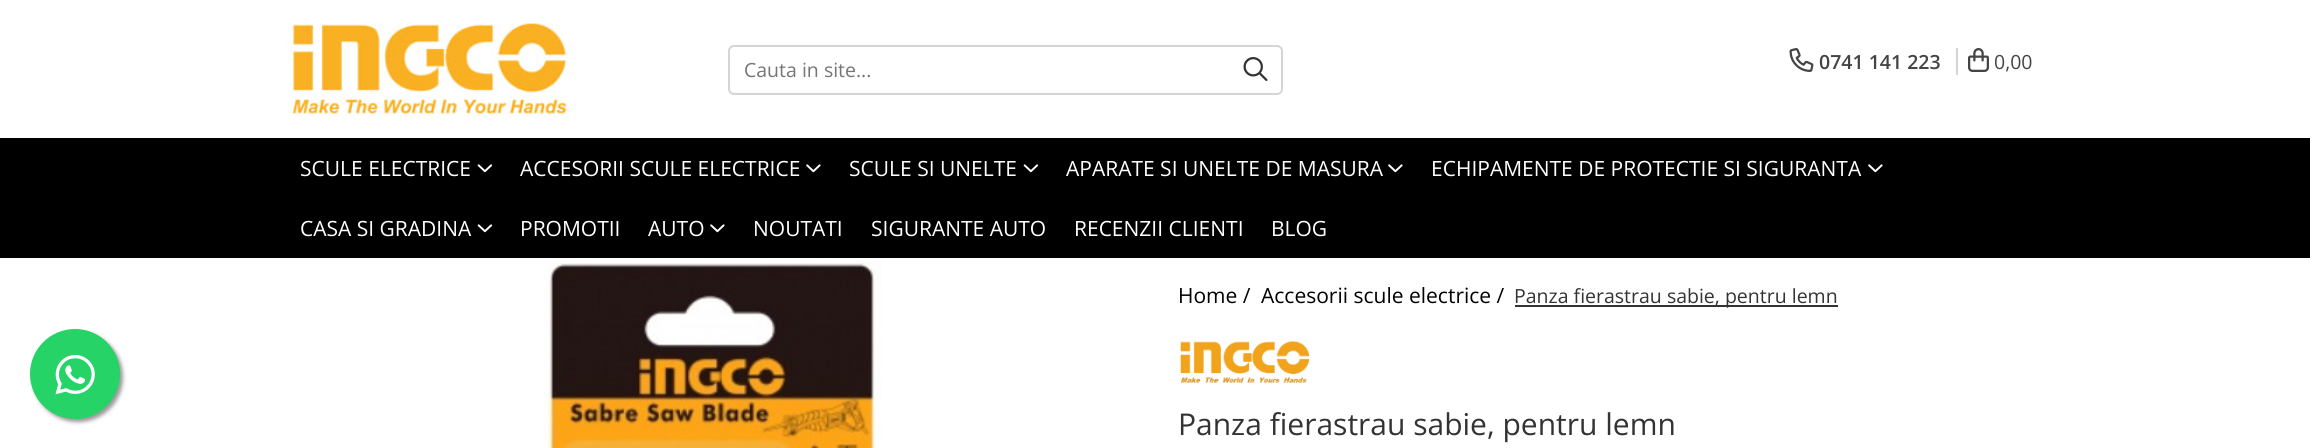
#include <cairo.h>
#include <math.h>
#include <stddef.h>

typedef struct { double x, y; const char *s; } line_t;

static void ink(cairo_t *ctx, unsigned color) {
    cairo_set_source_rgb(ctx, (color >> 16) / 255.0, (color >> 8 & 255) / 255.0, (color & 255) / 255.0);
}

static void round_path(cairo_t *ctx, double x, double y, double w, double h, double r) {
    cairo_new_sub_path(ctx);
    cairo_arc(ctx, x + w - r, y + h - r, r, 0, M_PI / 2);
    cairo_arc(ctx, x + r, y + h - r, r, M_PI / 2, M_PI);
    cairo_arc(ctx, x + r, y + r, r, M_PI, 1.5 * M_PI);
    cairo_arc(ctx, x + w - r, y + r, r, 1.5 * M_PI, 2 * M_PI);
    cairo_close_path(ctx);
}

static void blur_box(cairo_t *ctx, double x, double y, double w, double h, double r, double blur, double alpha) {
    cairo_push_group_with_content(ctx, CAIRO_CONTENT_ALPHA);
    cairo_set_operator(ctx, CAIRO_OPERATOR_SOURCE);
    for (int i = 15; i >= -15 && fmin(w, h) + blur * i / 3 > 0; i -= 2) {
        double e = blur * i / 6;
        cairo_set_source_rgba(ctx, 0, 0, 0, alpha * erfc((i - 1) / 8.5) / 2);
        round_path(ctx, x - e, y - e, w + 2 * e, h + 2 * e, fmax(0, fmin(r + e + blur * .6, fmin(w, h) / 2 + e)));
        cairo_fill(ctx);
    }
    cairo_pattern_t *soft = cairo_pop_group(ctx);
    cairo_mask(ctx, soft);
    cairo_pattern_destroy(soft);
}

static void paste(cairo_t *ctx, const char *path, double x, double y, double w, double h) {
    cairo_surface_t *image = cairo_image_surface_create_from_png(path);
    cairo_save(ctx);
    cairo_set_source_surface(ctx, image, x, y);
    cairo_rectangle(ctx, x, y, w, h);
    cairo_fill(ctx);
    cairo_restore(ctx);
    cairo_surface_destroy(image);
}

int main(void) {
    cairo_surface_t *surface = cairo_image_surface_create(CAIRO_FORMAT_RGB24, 2310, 448);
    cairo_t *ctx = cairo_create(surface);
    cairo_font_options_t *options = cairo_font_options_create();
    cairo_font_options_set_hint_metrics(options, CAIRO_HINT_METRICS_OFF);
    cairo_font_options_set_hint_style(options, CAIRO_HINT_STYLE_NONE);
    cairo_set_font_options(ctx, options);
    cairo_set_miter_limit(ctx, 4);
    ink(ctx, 0xFFFFFF);
    cairo_paint(ctx);
    ink(ctx, 0x999999);
    blur_box(ctx, 33, 332, 90, 90, 45, 2, 1);
    ink(ctx, 0x25D366);
    cairo_arc(ctx, 75, 374, 45, 0, 2 * M_PI);
    cairo_fill(ctx);
    paste(ctx, "media/1.png", 55, 354, 40, 41);
    paste(ctx, "media/2.png", 286, 22, 285, 94);
    round_path(ctx, 729, 46, 553, 48, 5);
    ink(ctx, 0xD5D5D5);
    cairo_stroke(ctx);
    cairo_select_font_face(ctx, "Open Sans", CAIRO_FONT_SLANT_NORMAL, CAIRO_FONT_WEIGHT_NORMAL);
    cairo_set_font_size(ctx, 19.5);
    ink(ctx, 0x757575);
    cairo_move_to(ctx, 744, 77);
    cairo_show_text(ctx, "Cauta in site...");
    paste(ctx, "media/3.png", 1243, 57, 25, 24);
    paste(ctx, "media/4.png", 1789, 48, 25, 24);
    cairo_select_font_face(ctx, "Open Sans SemiBold", CAIRO_FONT_SLANT_NORMAL, CAIRO_FONT_WEIGHT_NORMAL);
    ink(ctx, 0x444444);
    cairo_move_to(ctx, 1819, 69);
    cairo_show_text(ctx, "0741 141 223");
    ink(ctx, 0xD5D5D5);
    cairo_rectangle(ctx, 1956, 48, 2, 27);
    cairo_fill(ctx);
    paste(ctx, "media/5.png", 1968, 48, 21, 24);
    cairo_select_font_face(ctx, "Open Sans", CAIRO_FONT_SLANT_NORMAL, CAIRO_FONT_WEIGHT_NORMAL);
    ink(ctx, 0x444444);
    cairo_move_to(ctx, 1994, 69);
    cairo_show_text(ctx, "0,00");
    ink(ctx, 0x000000);
    cairo_rectangle(ctx, 0, 138, 2310, 120);
    cairo_fill(ctx);
    cairo_set_font_size(ctx, 21);
    ink(ctx, 0xFFFFFF);
    cairo_move_to(ctx, 300, 176);
    cairo_show_text(ctx, "SCULE ELECTRICE");
    paste(ctx, "media/6.png", 477, 164, 16, 9);
    cairo_move_to(ctx, 520, 176);
    cairo_show_text(ctx, "ACCESORII SCULE ELECTRICE");
    paste(ctx, "media/7.png", 806, 164, 15, 9);
    cairo_move_to(ctx, 849, 176);
    cairo_show_text(ctx, "SCULE SI UNELTE");
    paste(ctx, "media/6.png", 1023, 164, 16, 9);
    cairo_move_to(ctx, 1066, 176);
    cairo_show_text(ctx, "APARATE SI UNELTE DE MASURA");
    paste(ctx, "media/7.png", 1388, 164, 15, 9);
    cairo_move_to(ctx, 1431, 176);
    cairo_show_text(ctx, "ECHIPAMENTE DE PROTECTIE SI SIGURANTA");
    paste(ctx, "media/7.png", 1868, 164, 15, 9);
    cairo_move_to(ctx, 300, 236);
    cairo_show_text(ctx, "CASA SI GRADINA");
    paste(ctx, "media/6.png", 477, 224, 16, 9);
    cairo_move_to(ctx, 520, 236);
    cairo_show_text(ctx, "PROMOTII");
    cairo_move_to(ctx, 648, 236);
    cairo_show_text(ctx, "AUTO");
    paste(ctx, "media/7.png", 710, 224, 15, 9);
    {
        static const line_t items[] = {
            {753, 236, "NOUTATI"},
            {871, 236, "SIGURANTE AUTO"},
            {1074, 236, "RECENZII CLIENTI"},
            {1271, 236, "BLOG"},
        };
        for (size_t i = 0; i < sizeof items / sizeof *items; i++) {
            cairo_move_to(ctx, items[i].x, items[i].y);
            cairo_show_text(ctx, items[i].s);
        }
    }
    paste(ctx, "media/8.png", 544, 260, 338, 188);
    ink(ctx, 0x000000);
    cairo_move_to(ctx, 1178, 303);
    cairo_show_text(ctx, "Home /");
    cairo_move_to(ctx, 1261, 303);
    cairo_show_text(ctx, "Accesorii scule electrice /");
    ink(ctx, 0x333333);
    cairo_rectangle(ctx, 1515, 305, 323, 2);
    cairo_fill(ctx);
    cairo_set_font_size(ctx, 19.5);
    cairo_move_to(ctx, 1514, 303);
    cairo_show_text(ctx, "Panza fierastrau sabie, pentru lemn");
    paste(ctx, "media/9.png", 1180, 340, 130, 43);
    cairo_set_font_size(ctx, 30);
    cairo_move_to(ctx, 1178, 435);
    cairo_show_text(ctx, "Panza fierastrau sabie, pentru lemn");
    cairo_surface_write_to_png(surface, "image.png");
    cairo_font_options_destroy(options);
    cairo_destroy(ctx);
    cairo_surface_destroy(surface);
    return 0;
}
